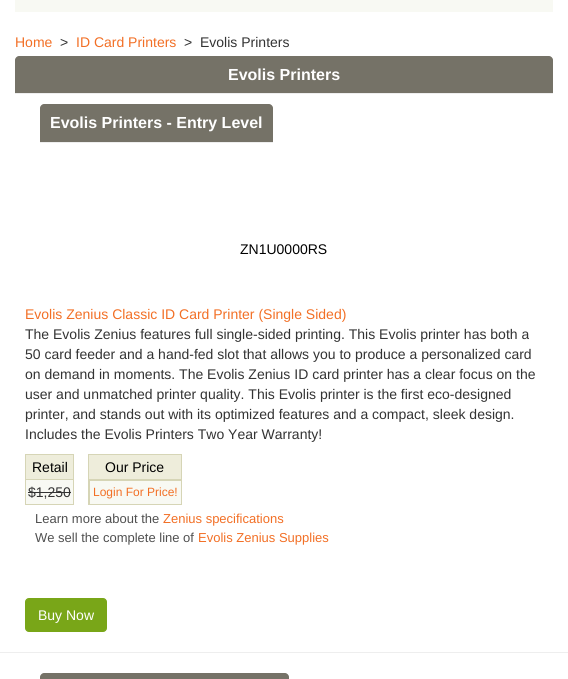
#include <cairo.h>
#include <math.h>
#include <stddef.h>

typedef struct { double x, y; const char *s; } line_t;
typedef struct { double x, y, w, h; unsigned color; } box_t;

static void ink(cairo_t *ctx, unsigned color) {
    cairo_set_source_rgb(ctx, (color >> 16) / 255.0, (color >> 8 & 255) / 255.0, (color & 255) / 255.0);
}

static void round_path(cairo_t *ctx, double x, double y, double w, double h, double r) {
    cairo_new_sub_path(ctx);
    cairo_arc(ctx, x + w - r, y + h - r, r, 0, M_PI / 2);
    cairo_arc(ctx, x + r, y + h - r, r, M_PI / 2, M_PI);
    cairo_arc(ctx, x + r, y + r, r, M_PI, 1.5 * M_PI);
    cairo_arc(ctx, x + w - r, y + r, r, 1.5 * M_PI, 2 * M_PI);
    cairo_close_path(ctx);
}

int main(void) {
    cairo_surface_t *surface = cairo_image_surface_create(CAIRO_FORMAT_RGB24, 568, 679);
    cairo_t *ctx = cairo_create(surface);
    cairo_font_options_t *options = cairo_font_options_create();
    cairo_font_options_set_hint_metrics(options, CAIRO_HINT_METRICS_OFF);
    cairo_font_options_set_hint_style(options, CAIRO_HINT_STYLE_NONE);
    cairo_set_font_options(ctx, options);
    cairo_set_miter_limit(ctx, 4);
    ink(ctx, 0xFFFFFF);
    cairo_paint(ctx);
    ink(ctx, 0xF8F9F3);
    cairo_rectangle(ctx, 15, 0, 538, 12);
    cairo_fill(ctx);
    cairo_select_font_face(ctx, "Liberation Sans", CAIRO_FONT_SLANT_NORMAL, CAIRO_FONT_WEIGHT_NORMAL);
    cairo_set_font_size(ctx, 14);
    ink(ctx, 0xF26F25);
    cairo_move_to(ctx, 15, 47);
    cairo_show_text(ctx, "Home");
    ink(ctx, 0x333333);
    cairo_move_to(ctx, 60, 47);
    cairo_show_text(ctx, ">");
    ink(ctx, 0xF26F25);
    cairo_move_to(ctx, 76, 47);
    cairo_show_text(ctx, "ID Card Printers");
    ink(ctx, 0x333333);
    cairo_move_to(ctx, 184, 47);
    cairo_show_text(ctx, ">");
    cairo_move_to(ctx, 200, 47);
    cairo_show_text(ctx, "Evolis Printers");
    ink(ctx, 0x757267);
    cairo_new_path(ctx);
    cairo_move_to(ctx, 19, 56);
    cairo_line_to(ctx, 549, 56);
    cairo_curve_to(ctx, 551, 56, 553, 58, 553, 60);
    cairo_line_to(ctx, 553, 94);
    cairo_line_to(ctx, 15, 94);
    cairo_line_to(ctx, 15, 60);
    cairo_curve_to(ctx, 15, 58, 17, 56, 19, 56);
    cairo_close_path(ctx);
    cairo_fill(ctx);
    ink(ctx, 0xEEEEEE);
    cairo_rectangle(ctx, 15, 93, 538, 1);
    cairo_fill(ctx);
    cairo_select_font_face(ctx, "Liberation Sans", CAIRO_FONT_SLANT_NORMAL, CAIRO_FONT_WEIGHT_BOLD);
    cairo_set_font_size(ctx, 16);
    ink(ctx, 0xFFFFFF);
    cairo_move_to(ctx, 228, 80);
    cairo_show_text(ctx, "Evolis Printers");
    ink(ctx, 0x757267);
    cairo_new_path(ctx);
    cairo_move_to(ctx, 44, 104);
    cairo_line_to(ctx, 269, 104);
    cairo_curve_to(ctx, 271, 104, 273, 106, 273, 108);
    cairo_line_to(ctx, 273, 143);
    cairo_line_to(ctx, 40, 143);
    cairo_line_to(ctx, 40, 108);
    cairo_curve_to(ctx, 40, 106, 42, 104, 44, 104);
    cairo_close_path(ctx);
    cairo_fill(ctx);
    ink(ctx, 0xEEEEEE);
    cairo_rectangle(ctx, 40, 142, 233, 1);
    cairo_fill(ctx);
    ink(ctx, 0xFFFFFF);
    cairo_move_to(ctx, 50, 128);
    cairo_show_text(ctx, "Evolis Printers - Entry Level");
    cairo_select_font_face(ctx, "Liberation Sans", CAIRO_FONT_SLANT_NORMAL, CAIRO_FONT_WEIGHT_NORMAL);
    cairo_set_font_size(ctx, 14);
    ink(ctx, 0x000000);
    cairo_move_to(ctx, 240, 254);
    cairo_show_text(ctx, "ZN1U0000RS");
    ink(ctx, 0xF26F25);
    cairo_move_to(ctx, 25, 319);
    cairo_show_text(ctx, "Evolis Zenius Classic ID Card Printer (Single Sided)");
    ink(ctx, 0x333333);
    {
        static const line_t items[] = {
            {25, 339, "The Evolis Zenius features full single-sided printing. This Evolis printer has both a"},
            {25, 359, "50 card feeder and a hand-fed slot that allows you to produce a personalized card"},
            {25, 379, "on demand in moments. The Evolis Zenius ID card printer has a clear focus on the"},
            {25, 399, "user and unmatched printer quality. This Evolis printer is the first eco-designed"},
            {25, 419, "printer, and stands out with its optimized features and a compact, sleek design."},
            {25, 439, "Includes the Evolis Printers Two Year Warranty!"},
        };
        for (size_t i = 0; i < sizeof items / sizeof *items; i++) {
            cairo_move_to(ctx, items[i].x, items[i].y);
            cairo_show_text(ctx, items[i].s);
        }
    }
    {
        static const box_t items[] = {
            {26, 455, 47, 24, 0xEEEDDB},
            {73, 479, 1, 26, 0xD6D5B6},
            {25, 479, 49, 1, 0xD6D5B6},
            {73, 454, 1, 26, 0xD6D5B6},
            {25, 454, 49, 1, 0xD6D5B6},
            {25, 504, 49, 1, 0xD6D5B6},
            {25, 479, 1, 26, 0xD6D5B6},
            {25, 454, 1, 26, 0xD6D5B6},
        };
        for (size_t i = 0; i < sizeof items / sizeof *items; i++) {
            ink(ctx, items[i].color);
            cairo_rectangle(ctx, items[i].x, items[i].y, items[i].w, items[i].h);
            cairo_fill(ctx);
        }
    }
    ink(ctx, 0x000000);
    cairo_move_to(ctx, 32, 472);
    cairo_show_text(ctx, "Retail");
    {
        static const box_t items[] = {
            {89, 455, 92, 24, 0xEEEDDB},
            {88, 454, 94, 1, 0xD6D5B6},
            {181, 454, 1, 26, 0xD6D5B6},
            {88, 479, 1, 26, 0xD6D5B6},
            {88, 479, 94, 1, 0xD6D5B6},
            {88, 454, 1, 26, 0xD6D5B6},
        };
        for (size_t i = 0; i < sizeof items / sizeof *items; i++) {
            ink(ctx, items[i].color);
            cairo_rectangle(ctx, items[i].x, items[i].y, items[i].w, items[i].h);
            cairo_fill(ctx);
        }
    }
    ink(ctx, 0x000000);
    cairo_move_to(ctx, 105, 472);
    cairo_show_text(ctx, "Our Price");
    ink(ctx, 0xF8F9F3);
    cairo_rectangle(ctx, 26, 480, 47, 24);
    cairo_fill(ctx);
    ink(ctx, 0x333333);
    cairo_move_to(ctx, 28, 497);
    cairo_show_text(ctx, "$1,250");
    cairo_rectangle(ctx, 28, 492, 43, 1);
    cairo_fill(ctx);
    ink(ctx, 0xF8F9F3);
    cairo_rectangle(ctx, 89.5, 480.5, 92, 24);
    cairo_fill_preserve(ctx);
    ink(ctx, 0xD6D5B6);
    cairo_set_line_width(ctx, 1);
    cairo_stroke(ctx);
    cairo_set_font_size(ctx, 12);
    ink(ctx, 0xF26F25);
    cairo_move_to(ctx, 93, 496);
    cairo_show_text(ctx, "Login For Price!");
    cairo_set_font_size(ctx, 13);
    ink(ctx, 0x505050);
    cairo_move_to(ctx, 35, 523);
    cairo_show_text(ctx, "Learn more about the");
    ink(ctx, 0xF26F25);
    cairo_move_to(ctx, 163, 523);
    cairo_show_text(ctx, "Zenius specifications");
    ink(ctx, 0x505050);
    cairo_move_to(ctx, 35, 542);
    cairo_show_text(ctx, "We sell the complete line of");
    ink(ctx, 0xF26F25);
    cairo_move_to(ctx, 198, 542);
    cairo_show_text(ctx, "Evolis Zenius Supplies");
    ink(ctx, 0x79A618);
    round_path(ctx, 25.5, 598.5, 81, 33, 3.5);
    cairo_fill_preserve(ctx);
    cairo_stroke(ctx);
    cairo_set_font_size(ctx, 14);
    ink(ctx, 0xFFFFFF);
    cairo_move_to(ctx, 38, 620);
    cairo_show_text(ctx, "Buy Now");
    ink(ctx, 0xEEEEEE);
    cairo_rectangle(ctx, 0, 652, 568, 1);
    cairo_fill(ctx);
    ink(ctx, 0x757267);
    cairo_new_path(ctx);
    cairo_move_to(ctx, 44, 673);
    cairo_line_to(ctx, 285, 673);
    cairo_curve_to(ctx, 287, 673, 289, 675, 289, 677);
    cairo_line_to(ctx, 289, 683);
    cairo_line_to(ctx, 40, 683);
    cairo_line_to(ctx, 40, 677);
    cairo_curve_to(ctx, 40, 675, 42, 673, 44, 673);
    cairo_close_path(ctx);
    cairo_fill(ctx);
    cairo_surface_write_to_png(surface, "image.png");
    cairo_font_options_destroy(options);
    cairo_destroy(ctx);
    cairo_surface_destroy(surface);
    return 0;
}
